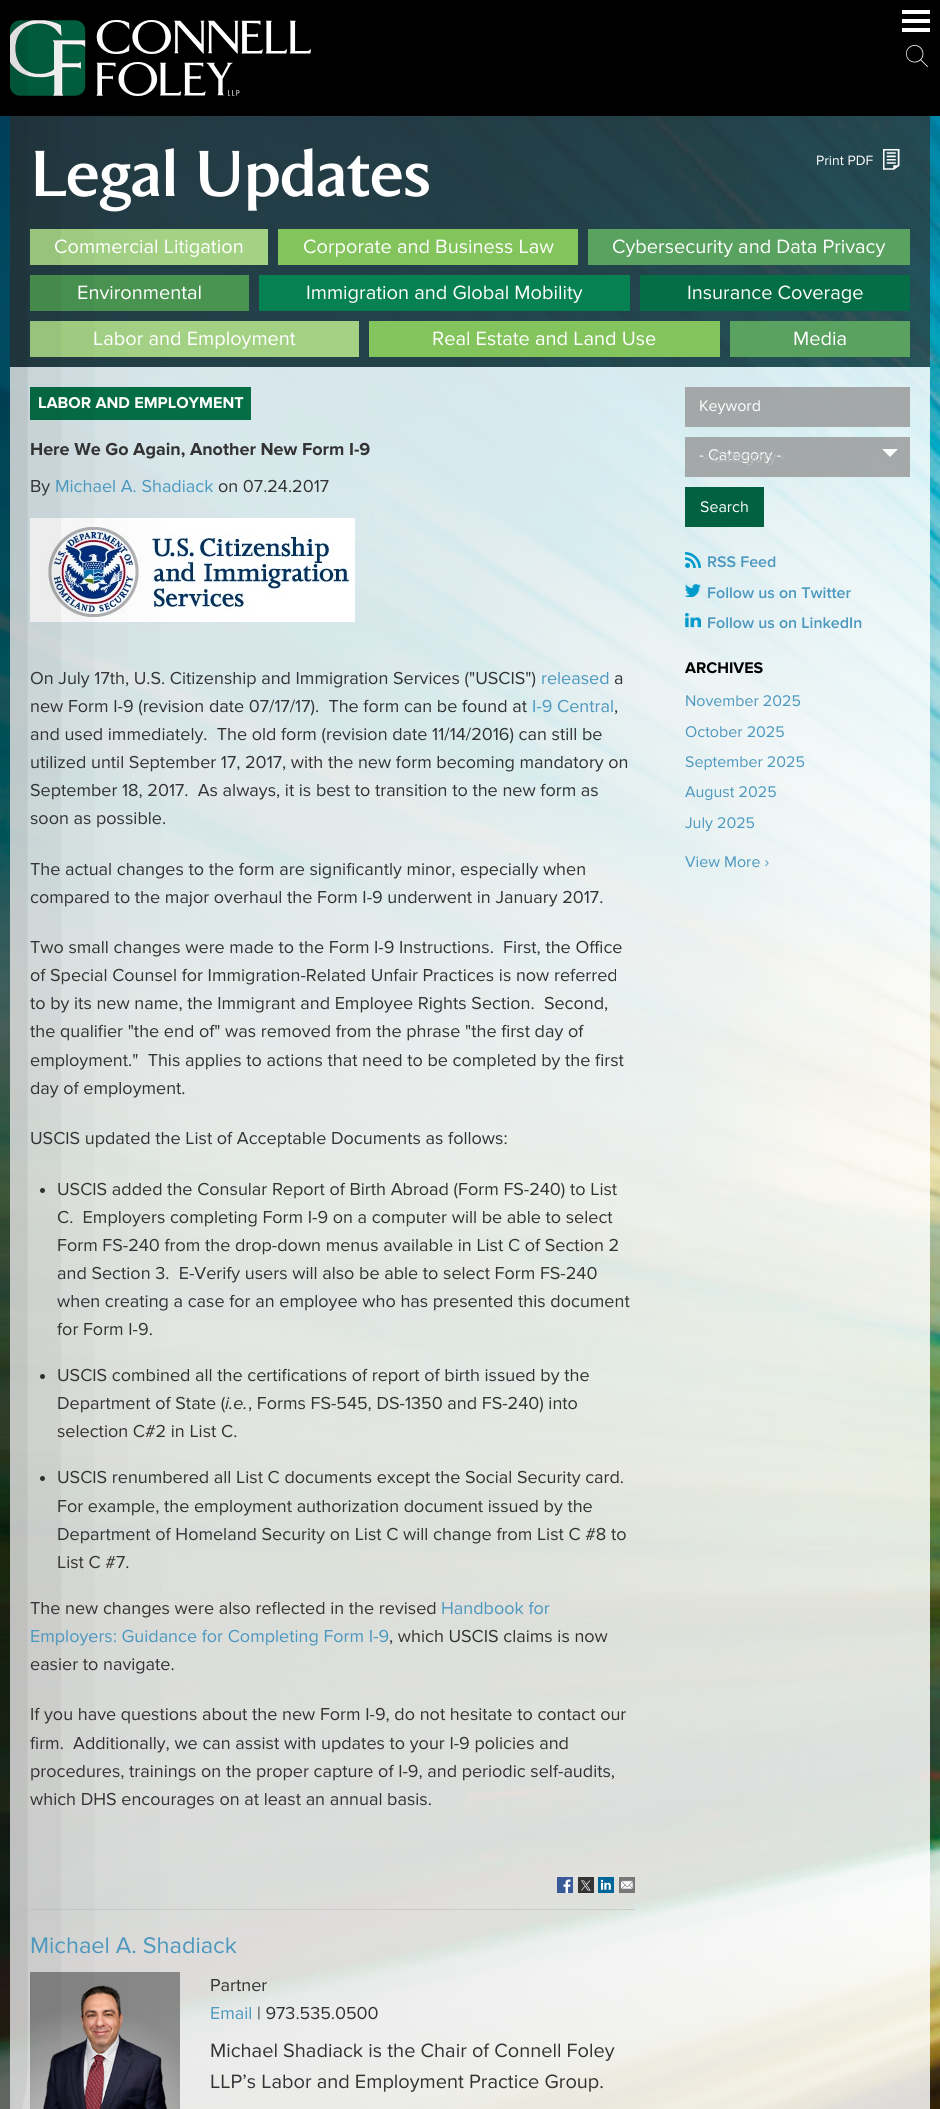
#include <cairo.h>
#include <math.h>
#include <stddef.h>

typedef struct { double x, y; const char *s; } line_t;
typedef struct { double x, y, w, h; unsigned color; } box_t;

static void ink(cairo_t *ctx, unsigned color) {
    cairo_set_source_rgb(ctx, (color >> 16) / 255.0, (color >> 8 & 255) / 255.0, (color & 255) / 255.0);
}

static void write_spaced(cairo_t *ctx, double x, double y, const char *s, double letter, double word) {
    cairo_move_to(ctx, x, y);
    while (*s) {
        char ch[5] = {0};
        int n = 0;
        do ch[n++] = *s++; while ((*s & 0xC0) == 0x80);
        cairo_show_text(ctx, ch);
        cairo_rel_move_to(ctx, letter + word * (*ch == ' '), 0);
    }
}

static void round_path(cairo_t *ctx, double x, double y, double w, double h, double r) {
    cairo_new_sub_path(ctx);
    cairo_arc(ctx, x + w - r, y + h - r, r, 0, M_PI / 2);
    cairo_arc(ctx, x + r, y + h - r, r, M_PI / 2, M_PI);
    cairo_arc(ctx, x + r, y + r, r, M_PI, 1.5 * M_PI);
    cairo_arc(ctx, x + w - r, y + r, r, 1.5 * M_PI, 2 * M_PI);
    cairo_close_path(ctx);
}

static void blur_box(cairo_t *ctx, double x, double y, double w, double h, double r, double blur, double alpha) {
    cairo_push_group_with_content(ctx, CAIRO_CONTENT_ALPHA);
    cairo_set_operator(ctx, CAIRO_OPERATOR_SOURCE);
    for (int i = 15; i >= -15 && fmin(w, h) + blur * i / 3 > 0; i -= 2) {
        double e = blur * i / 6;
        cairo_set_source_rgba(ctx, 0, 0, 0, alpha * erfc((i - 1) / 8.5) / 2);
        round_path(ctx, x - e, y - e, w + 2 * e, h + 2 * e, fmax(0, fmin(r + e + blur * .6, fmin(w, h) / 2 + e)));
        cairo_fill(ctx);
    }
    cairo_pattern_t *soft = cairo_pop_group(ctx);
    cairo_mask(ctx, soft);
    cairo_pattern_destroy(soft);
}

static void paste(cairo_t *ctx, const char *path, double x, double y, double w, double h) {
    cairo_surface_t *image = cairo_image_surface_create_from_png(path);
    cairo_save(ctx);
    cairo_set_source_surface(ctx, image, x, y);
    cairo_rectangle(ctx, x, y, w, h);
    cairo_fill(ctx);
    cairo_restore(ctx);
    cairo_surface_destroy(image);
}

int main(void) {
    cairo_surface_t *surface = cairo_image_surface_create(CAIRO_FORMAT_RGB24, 940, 2109);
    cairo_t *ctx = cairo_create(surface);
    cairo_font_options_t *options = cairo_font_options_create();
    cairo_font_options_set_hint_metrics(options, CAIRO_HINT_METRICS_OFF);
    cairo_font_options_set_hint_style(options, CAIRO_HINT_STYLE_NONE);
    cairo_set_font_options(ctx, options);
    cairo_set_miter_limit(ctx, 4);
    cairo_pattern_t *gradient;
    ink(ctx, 0xFFFFFF);
    cairo_paint(ctx);
    ink(ctx, 0x000000);
    cairo_rectangle(ctx, 0, 0, 940, 116);
    cairo_fill(ctx);
    paste(ctx, "media/1.png", 10, 20, 301, 76);
    {
        static const box_t items[] = {
            {902, 10, 28, 4, 0xFFFFFF},
            {902, 28, 28, 4, 0xFFFFFF},
            {902, 19, 28, 4, 0xFFFFFF},
        };
        for (size_t i = 0; i < sizeof items / sizeof *items; i++) {
            ink(ctx, items[i].color);
            cairo_rectangle(ctx, items[i].x, items[i].y, items[i].w, items[i].h);
            cairo_fill(ctx);
        }
    }
    paste(ctx, "media/2.png", 906, 45, 22, 22);
    paste(ctx, "media/3.png", 0, 116, 940, 1993);
    cairo_set_source_rgba(ctx, 0.2, 0.2, 0.2, 0.7);
    cairo_rectangle(ctx, 10, 116, 920, 251);
    cairo_fill(ctx);
    ink(ctx, 0xA4D285);
    cairo_rectangle(ctx, 30, 229, 238, 36);
    cairo_fill(ctx);
    ink(ctx, 0x4A9451);
    cairo_rectangle(ctx, 30, 275, 219, 36);
    cairo_fill(ctx);
    ink(ctx, 0xA4D285);
    cairo_rectangle(ctx, 30, 321, 329, 36);
    cairo_fill(ctx);
    cairo_set_source_rgba(ctx, 1, 1, 1, 0.84);
    cairo_rectangle(ctx, 10, 367, 920, 1742);
    cairo_fill(ctx);
    ink(ctx, 0xCCCCCC);
    cairo_rectangle(ctx, 30, 1909, 605, 1);
    cairo_fill(ctx);
    ink(ctx, 0x056E46);
    cairo_rectangle(ctx, 30, 387, 221, 33);
    cairo_fill(ctx);
    paste(ctx, "media/5.png", 30, 518, 325, 104);
    ink(ctx, 0x333333);
    cairo_arc(ctx, 42.5, 1190.5, 2.5, 0, 2 * M_PI);
    cairo_fill(ctx);
    cairo_arc(ctx, 42.5, 1376.5, 2.5, 0, 2 * M_PI);
    cairo_fill(ctx);
    cairo_arc(ctx, 42.5, 1478.5, 2.5, 0, 2 * M_PI);
    cairo_fill(ctx);
    gradient = cairo_pattern_create_radial(83, 2150, 0, 83, 2150, 203);
    cairo_pattern_add_color_stop_rgba(gradient, 0, 0.882, 0.882, 0.882, 0.75);
    cairo_pattern_add_color_stop_rgba(gradient, 0.7, 0.424, 0.424, 0.424, 0.75);
    cairo_set_source(ctx, gradient);
    cairo_pattern_destroy(gradient);
    cairo_rectangle(ctx, 30, 1972, 150, 137);
    cairo_fill(ctx);
    paste(ctx, "media/10.png", 43, 1985, 125, 124);
    ink(ctx, 0x000000);
    blur_box(ctx, -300, -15, 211, 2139, 0, 100, 0.8);
    cairo_select_font_face(ctx, "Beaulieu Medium", CAIRO_FONT_SLANT_NORMAL, CAIRO_FONT_WEIGHT_NORMAL);
    cairo_set_font_size(ctx, 65);
    ink(ctx, 0xFFFFFF);
    write_spaced(ctx, 30, 196, "Legal Updates", -1, 0);
    paste(ctx, "media/4.png", 883, 149, 17, 21);
    cairo_select_font_face(ctx, "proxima", CAIRO_FONT_SLANT_NORMAL, CAIRO_FONT_WEIGHT_NORMAL);
    cairo_set_font_size(ctx, 14);
    cairo_move_to(ctx, 816, 165);
    cairo_show_text(ctx, "Print PDF");
    cairo_set_font_size(ctx, 20);
    cairo_move_to(ctx, 54, 253);
    cairo_show_text(ctx, "Commercial Litigation");
    ink(ctx, 0x83C55C);
    cairo_rectangle(ctx, 278, 229, 300, 36);
    cairo_fill(ctx);
    ink(ctx, 0xFFFFFF);
    cairo_move_to(ctx, 303, 253);
    cairo_show_text(ctx, "Corporate and Business Law");
    ink(ctx, 0x59A260);
    cairo_rectangle(ctx, 588, 229, 322, 36);
    cairo_fill(ctx);
    ink(ctx, 0xFFFFFF);
    cairo_move_to(ctx, 612, 253);
    cairo_show_text(ctx, "Cybersecurity and Data Privacy");
    cairo_move_to(ctx, 77, 299);
    cairo_show_text(ctx, "Environmental");
    ink(ctx, 0x068152);
    cairo_rectangle(ctx, 259, 275, 371, 36);
    cairo_fill(ctx);
    ink(ctx, 0xFFFFFF);
    cairo_move_to(ctx, 306, 299);
    cairo_show_text(ctx, "Immigration and Global Mobility");
    ink(ctx, 0x056E46);
    cairo_rectangle(ctx, 640, 275, 270, 36);
    cairo_fill(ctx);
    ink(ctx, 0xFFFFFF);
    cairo_move_to(ctx, 687, 299);
    cairo_show_text(ctx, "Insurance Coverage");
    cairo_move_to(ctx, 93, 345);
    cairo_show_text(ctx, "Labor and Employment");
    ink(ctx, 0x83C55C);
    cairo_rectangle(ctx, 369, 321, 351, 36);
    cairo_fill(ctx);
    ink(ctx, 0xFFFFFF);
    cairo_move_to(ctx, 432, 345);
    cairo_show_text(ctx, "Real Estate and Land Use");
    ink(ctx, 0x59A260);
    cairo_rectangle(ctx, 730, 321, 180, 36);
    cairo_fill(ctx);
    ink(ctx, 0xFFFFFF);
    cairo_move_to(ctx, 793, 345);
    cairo_show_text(ctx, "Media");
    cairo_select_font_face(ctx, "proxima", CAIRO_FONT_SLANT_NORMAL, CAIRO_FONT_WEIGHT_BOLD);
    cairo_set_font_size(ctx, 16.25);
    cairo_move_to(ctx, 38, 408);
    cairo_show_text(ctx, "LABOR AND EMPLOYMENT");
    cairo_set_font_size(ctx, 18);
    ink(ctx, 0x333333);
    cairo_move_to(ctx, 30, 455);
    cairo_show_text(ctx, "Here We Go Again, Another New Form I-9");
    cairo_select_font_face(ctx, "proxima", CAIRO_FONT_SLANT_NORMAL, CAIRO_FONT_WEIGHT_NORMAL);
    cairo_move_to(ctx, 30, 492);
    cairo_show_text(ctx, "By");
    ink(ctx, 0x4C98BF);
    cairo_move_to(ctx, 55, 492);
    cairo_show_text(ctx, "Michael A. Shadiack");
    ink(ctx, 0x333333);
    cairo_move_to(ctx, 218, 492);
    cairo_show_text(ctx, "on 07.24.2017");
    cairo_move_to(ctx, 30, 684);
    cairo_show_text(ctx, "On July 17th, U.S. Citizenship and Immigration Services (\"USCIS\")");
    ink(ctx, 0x4C98BF);
    cairo_move_to(ctx, 541, 684);
    cairo_show_text(ctx, "released");
    ink(ctx, 0x333333);
    cairo_move_to(ctx, 614, 684);
    cairo_show_text(ctx, "a");
    cairo_move_to(ctx, 30, 712);
    cairo_show_text(ctx, "new Form I-9 (revision date 07/17/17).  The form can be found at");
    ink(ctx, 0x4C98BF);
    cairo_move_to(ctx, 532, 712);
    cairo_show_text(ctx, "I-9 Central");
    ink(ctx, 0x333333);
    {
        static const line_t items[] = {
            {614, 712, ","},
            {30, 740, "and used immediately.  The old form (revision date 11/14/2016) can still be"},
            {30, 768, "utilized until September 17, 2017, with the new form becoming mandatory on"},
            {30, 796, "September 18, 2017.  As always, it is best to transition to the new form as"},
            {30, 824, "soon as possible."},
            {30, 875, "The actual changes to the form are significantly minor, especially when"},
            {30, 903, "compared to the major overhaul the Form I-9 underwent in January 2017."},
            {30, 953, "Two small changes were made to the Form I-9 Instructions.  First, the Office"},
            {30, 981, "of Special Counsel for Immigration-Related Unfair Practices is now referred"},
            {30, 1009, "to by its new name, the Immigrant and Employee Rights Section.  Second,"},
            {30, 1037, "the qualifier \"the end of\" was removed from the phrase \"the first day of"},
            {30, 1066, "employment.\"  This applies to actions that need to be completed by the first"},
            {30, 1094, "day of employment."},
            {30, 1144, "USCIS updated the List of Acceptable Documents as follows:"},
            {57, 1195, "USCIS added the Consular Report of Birth Abroad (Form FS-240) to List"},
            {57, 1223, "C.  Employers completing Form I-9 on a computer will be able to select"},
            {57, 1251, "Form FS-240 from the drop-down menus available in List C of Section 2"},
            {57, 1279, "and Section 3.  E-Verify users will also be able to select Form FS-240"},
            {57, 1307, "when creating a case for an employee who has presented this document"},
            {57, 1335, "for Form I-9."},
            {57, 1381, "USCIS combined all the certifications of report of birth issued by the"},
            {57, 1409, "Department of State ("},
        };
        for (size_t i = 0; i < sizeof items / sizeof *items; i++) {
            cairo_move_to(ctx, items[i].x, items[i].y);
            cairo_show_text(ctx, items[i].s);
        }
    }
    cairo_select_font_face(ctx, "proxima", CAIRO_FONT_SLANT_ITALIC, CAIRO_FONT_WEIGHT_NORMAL);
    cairo_move_to(ctx, 225, 1409);
    cairo_show_text(ctx, "i.e.");
    cairo_select_font_face(ctx, "proxima", CAIRO_FONT_SLANT_NORMAL, CAIRO_FONT_WEIGHT_NORMAL);
    {
        static const line_t items[] = {
            {248, 1409, ", Forms FS-545, DS-1350 and FS-240) into"},
            {57, 1437, "selection C#2 in List C."},
            {57, 1483, "USCIS renumbered all List C documents except the Social Security card."},
            {57, 1512, "For example, the employment authorization document issued by the"},
            {57, 1540, "Department of Homeland Security on List C will change from List C #8 to"},
            {57, 1568, "List C #7."},
            {30, 1614, "The new changes were also reflected in the revised"},
        };
        for (size_t i = 0; i < sizeof items / sizeof *items; i++) {
            cairo_move_to(ctx, items[i].x, items[i].y);
            cairo_show_text(ctx, items[i].s);
        }
    }
    ink(ctx, 0x4C98BF);
    cairo_move_to(ctx, 441, 1614);
    cairo_show_text(ctx, "Handbook for");
    cairo_move_to(ctx, 30, 1642);
    cairo_show_text(ctx, "Employers: Guidance for Completing Form I-9");
    ink(ctx, 0x333333);
    {
        static const line_t items[] = {
            {389, 1642, ", which USCIS claims is now"},
            {30, 1670, "easier to navigate."},
            {30, 1720, "If you have questions about the new Form I-9, do not hesitate to contact our"},
            {30, 1749, "firm.  Additionally, we can assist with updates to your I-9 policies and"},
            {30, 1777, "procedures, trainings on the proper capture of I-9, and periodic self-audits,"},
            {30, 1805, "which DHS encourages on at least an annual basis."},
        };
        for (size_t i = 0; i < sizeof items / sizeof *items; i++) {
            cairo_move_to(ctx, items[i].x, items[i].y);
            cairo_show_text(ctx, items[i].s);
        }
    }
    paste(ctx, "media/6.png", 557, 1877, 16, 16);
    paste(ctx, "media/7.png", 578, 1877, 16, 16);
    paste(ctx, "media/8.png", 598, 1877, 16, 16);
    paste(ctx, "media/9.png", 619, 1877, 16, 16);
    cairo_set_font_size(ctx, 23.5);
    ink(ctx, 0x4C98BF);
    cairo_move_to(ctx, 30, 1953);
    cairo_show_text(ctx, "Michael A. Shadiack");
    cairo_set_font_size(ctx, 18);
    ink(ctx, 0x333333);
    cairo_move_to(ctx, 210, 1991);
    cairo_show_text(ctx, "Partner");
    ink(ctx, 0x4C98BF);
    cairo_move_to(ctx, 210, 2019);
    cairo_show_text(ctx, "Email");
    ink(ctx, 0x333333);
    cairo_move_to(ctx, 257, 2019);
    cairo_show_text(ctx, "| 973.535.0500");
    cairo_set_font_size(ctx, 20);
    cairo_move_to(ctx, 210, 2057);
    cairo_show_text(ctx, "Michael Shadiack is the Chair of Connell Foley");
    cairo_move_to(ctx, 210, 2088);
    cairo_show_text(ctx, "LLP’s Labor and Employment Practice Group.");
    cairo_set_source_rgba(ctx, 0.588, 0.588, 0.588, 0.8);
    cairo_rectangle(ctx, 685, 387, 225, 40);
    cairo_fill(ctx);
    cairo_set_font_size(ctx, 16);
    ink(ctx, 0xFFFFFF);
    cairo_move_to(ctx, 699, 411);
    cairo_show_text(ctx, "Keyword");
    cairo_set_source_rgba(ctx, 0.588, 0.588, 0.588, 0.8);
    cairo_rectangle(ctx, 685, 437, 225, 40);
    cairo_fill(ctx);
    ink(ctx, 0xFFFFFF);
    cairo_move_to(ctx, 699, 460);
    cairo_show_text(ctx, "- Category -");
    cairo_new_path(ctx);
    cairo_move_to(ctx, 882, 449);
    cairo_line_to(ctx, 898, 449);
    cairo_line_to(ctx, 890, 457);
    cairo_close_path(ctx);
    cairo_fill(ctx);
    ink(ctx, 0xB6BABA);
    cairo_move_to(ctx, 703, 462);
    cairo_show_text(ctx, "- Category -");
    ink(ctx, 0x016141);
    cairo_rectangle(ctx, 685, 487, 79, 40);
    cairo_fill(ctx);
    ink(ctx, 0xFFFFFF);
    cairo_move_to(ctx, 700, 512);
    cairo_show_text(ctx, "Search");
    paste(ctx, "media/11.png", 685, 552, 16, 16);
    cairo_select_font_face(ctx, "Proxima Nova SemiBold", CAIRO_FONT_SLANT_NORMAL, CAIRO_FONT_WEIGHT_NORMAL);
    ink(ctx, 0x4C98BF);
    cairo_move_to(ctx, 707, 567);
    cairo_show_text(ctx, "RSS Feed");
    paste(ctx, "media/12.png", 685, 583, 16, 14);
    cairo_move_to(ctx, 707, 598);
    cairo_show_text(ctx, "Follow us on Twitter");
    paste(ctx, "media/13.png", 685, 613, 16, 15);
    cairo_move_to(ctx, 707, 628);
    cairo_show_text(ctx, "Follow us on LinkedIn");
    cairo_select_font_face(ctx, "proxima", CAIRO_FONT_SLANT_NORMAL, CAIRO_FONT_WEIGHT_BOLD);
    ink(ctx, 0x000000);
    cairo_move_to(ctx, 685, 673);
    cairo_show_text(ctx, "ARCHIVES");
    cairo_select_font_face(ctx, "proxima", CAIRO_FONT_SLANT_NORMAL, CAIRO_FONT_WEIGHT_NORMAL);
    ink(ctx, 0x4C98BF);
    {
        static const line_t items[] = {
            {685, 706, "November 2025"},
            {685, 737, "October 2025"},
            {685, 767, "September 2025"},
            {685, 797, "August 2025"},
            {685, 828, "July 2025"},
            {685, 867, "View More ›"},
        };
        for (size_t i = 0; i < sizeof items / sizeof *items; i++) {
            cairo_move_to(ctx, items[i].x, items[i].y);
            cairo_show_text(ctx, items[i].s);
        }
    }
    cairo_surface_write_to_png(surface, "image.png");
    cairo_font_options_destroy(options);
    cairo_destroy(ctx);
    cairo_surface_destroy(surface);
    return 0;
}
